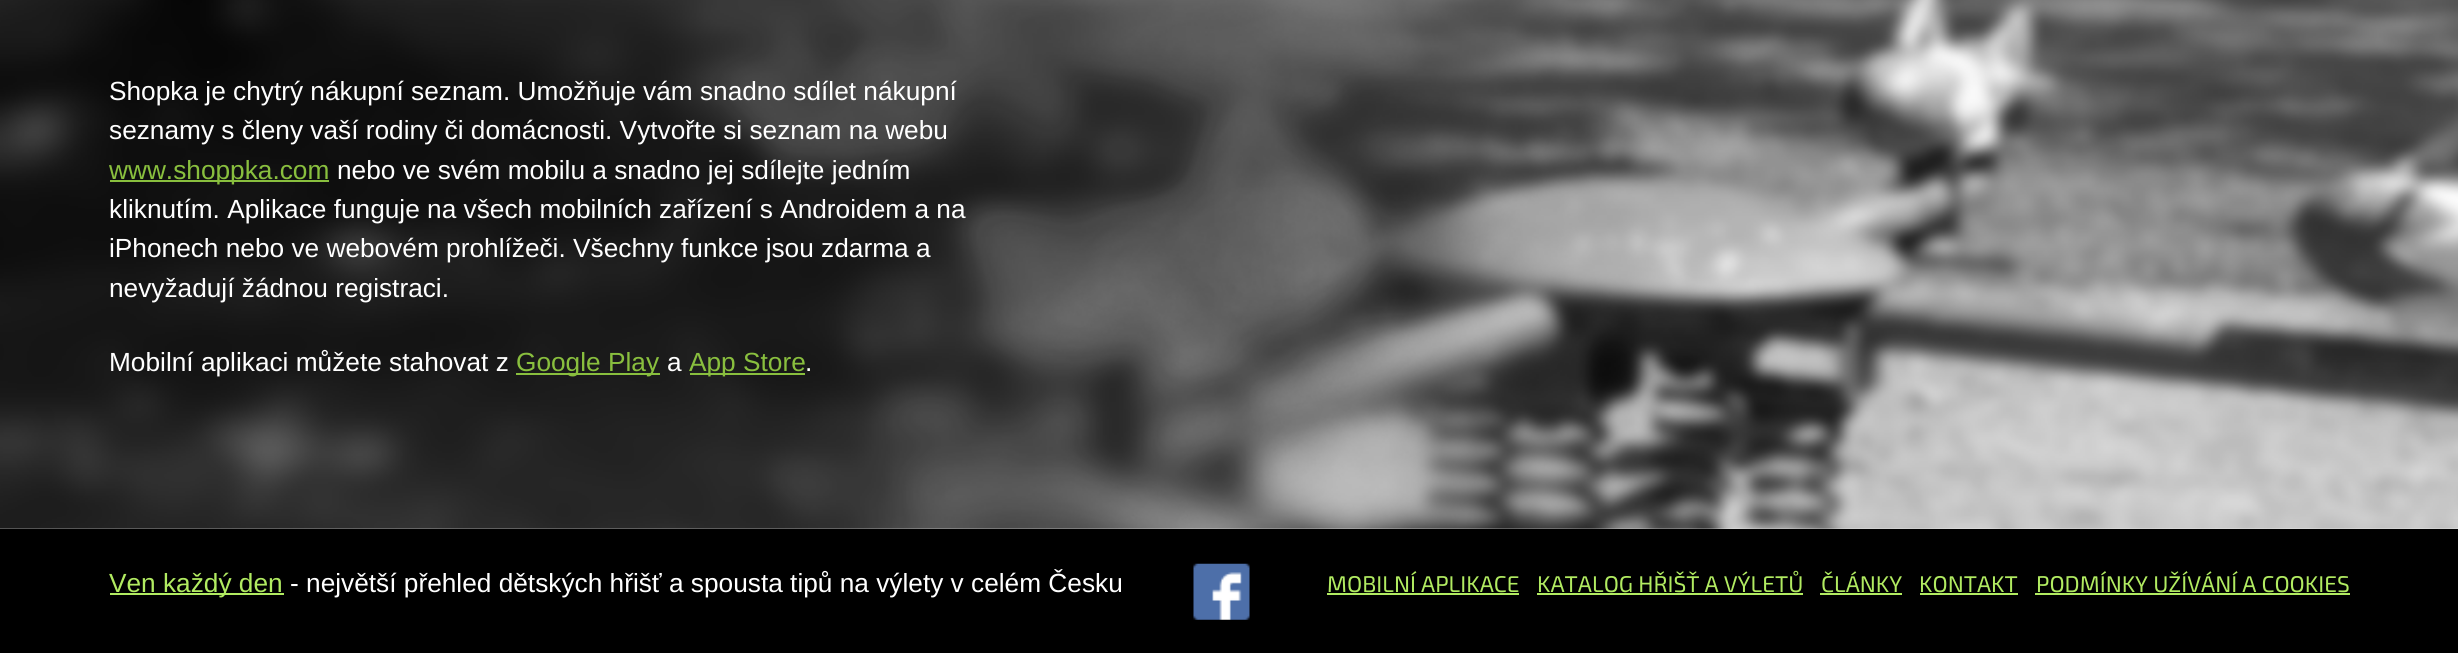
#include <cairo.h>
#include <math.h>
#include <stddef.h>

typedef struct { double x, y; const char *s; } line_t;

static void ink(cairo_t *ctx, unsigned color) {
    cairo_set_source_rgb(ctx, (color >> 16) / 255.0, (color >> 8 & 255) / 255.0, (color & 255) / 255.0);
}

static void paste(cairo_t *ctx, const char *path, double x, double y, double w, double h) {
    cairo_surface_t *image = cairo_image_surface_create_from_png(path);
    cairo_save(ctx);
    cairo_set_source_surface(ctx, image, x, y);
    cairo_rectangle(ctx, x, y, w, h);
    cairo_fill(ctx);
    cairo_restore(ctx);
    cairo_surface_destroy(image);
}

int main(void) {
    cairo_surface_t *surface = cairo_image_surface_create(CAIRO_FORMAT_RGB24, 2458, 653);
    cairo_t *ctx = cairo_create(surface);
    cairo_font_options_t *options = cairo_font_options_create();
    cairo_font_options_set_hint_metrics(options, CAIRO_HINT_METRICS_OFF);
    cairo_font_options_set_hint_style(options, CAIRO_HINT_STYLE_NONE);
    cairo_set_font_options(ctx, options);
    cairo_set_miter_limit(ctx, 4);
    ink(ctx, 0xFFFFFF);
    cairo_paint(ctx);
    paste(ctx, "media/1.png", 0, 0, 2458, 529);
    cairo_select_font_face(ctx, "Liberation Sans", CAIRO_FONT_SLANT_NORMAL, CAIRO_FONT_WEIGHT_NORMAL);
    cairo_set_font_size(ctx, 26.25);
    ink(ctx, 0xFFFFFF);
    cairo_move_to(ctx, 109, 100);
    cairo_show_text(ctx, "Shopka je chytrý nákupní seznam. Umožňuje vám snadno sdílet nákupní");
    cairo_move_to(ctx, 109, 139);
    cairo_show_text(ctx, "seznamy s členy vaší rodiny či domácnosti. Vytvořte si seznam na webu");
    ink(ctx, 0x89BF3E);
    cairo_rectangle(ctx, 110, 180, 219, 2);
    cairo_fill(ctx);
    cairo_move_to(ctx, 109, 179);
    cairo_show_text(ctx, "www.shoppka.com");
    ink(ctx, 0xFFFFFF);
    {
        static const line_t items[] = {
            {337, 179, "nebo ve svém mobilu a snadno jej sdílejte jedním"},
            {109, 218, "kliknutím. Aplikace funguje na všech mobilních zařízení s Androidem a na"},
            {109, 257, "iPhonech nebo ve webovém prohlížeči. Všechny funkce jsou zdarma a"},
            {109, 297, "nevyžadují žádnou registraci."},
            {109, 371, "Mobilní aplikaci můžete stahovat z"},
        };
        for (size_t i = 0; i < sizeof items / sizeof *items; i++) {
            cairo_move_to(ctx, items[i].x, items[i].y);
            cairo_show_text(ctx, items[i].s);
        }
    }
    ink(ctx, 0x89BF3E);
    cairo_rectangle(ctx, 516, 373, 144, 2);
    cairo_fill(ctx);
    cairo_move_to(ctx, 516, 371);
    cairo_show_text(ctx, "Google Play");
    ink(ctx, 0xFFFFFF);
    cairo_move_to(ctx, 667, 371);
    cairo_show_text(ctx, "a");
    ink(ctx, 0x89BF3E);
    cairo_rectangle(ctx, 690, 373, 115, 2);
    cairo_fill(ctx);
    cairo_move_to(ctx, 689, 371);
    cairo_show_text(ctx, "App Store");
    ink(ctx, 0xFFFFFF);
    cairo_move_to(ctx, 805, 371);
    cairo_show_text(ctx, ".");
    ink(ctx, 0x000000);
    cairo_rectangle(ctx, 0, 529, 2458, 124);
    cairo_fill(ctx);
    ink(ctx, 0xB1EB61);
    cairo_rectangle(ctx, 110, 593, 174, 2);
    cairo_fill(ctx);
    cairo_move_to(ctx, 109, 592);
    cairo_show_text(ctx, "Ven každý den");
    ink(ctx, 0xFFFFFF);
    cairo_move_to(ctx, 290, 592);
    cairo_show_text(ctx, "- největší přehled dětských hřišť a spousta tipů na výlety v celém Česku");
    paste(ctx, "media/2.png", 1193, 563, 57, 57);
    cairo_select_font_face(ctx, "Exo 2", CAIRO_FONT_SLANT_NORMAL, CAIRO_FONT_WEIGHT_NORMAL);
    cairo_set_font_size(ctx, 22.75);
    ink(ctx, 0xB1EB61);
    cairo_move_to(ctx, 1327, 592);
    cairo_show_text(ctx, "MOBILNÍ APLIKACE");
    cairo_rectangle(ctx, 1327, 593, 192, 2);
    cairo_fill(ctx);
    cairo_move_to(ctx, 1537, 592);
    cairo_show_text(ctx, "KATALOG HŘIŠŤ A VÝLETŮ");
    cairo_rectangle(ctx, 1537, 593, 266, 2);
    cairo_fill(ctx);
    cairo_move_to(ctx, 1821, 592);
    cairo_show_text(ctx, "ČLÁNKY");
    cairo_rectangle(ctx, 1820, 593, 82, 2);
    cairo_fill(ctx);
    cairo_move_to(ctx, 1919, 592);
    cairo_show_text(ctx, "KONTAKT");
    cairo_rectangle(ctx, 1920, 593, 98, 2);
    cairo_fill(ctx);
    cairo_move_to(ctx, 2036, 592);
    cairo_show_text(ctx, "PODMÍNKY UŽÍVÁNÍ A COOKIES");
    cairo_rectangle(ctx, 2035, 593, 315, 2);
    cairo_fill(ctx);
    cairo_surface_write_to_png(surface, "image.png");
    cairo_font_options_destroy(options);
    cairo_destroy(ctx);
    cairo_surface_destroy(surface);
    return 0;
}
